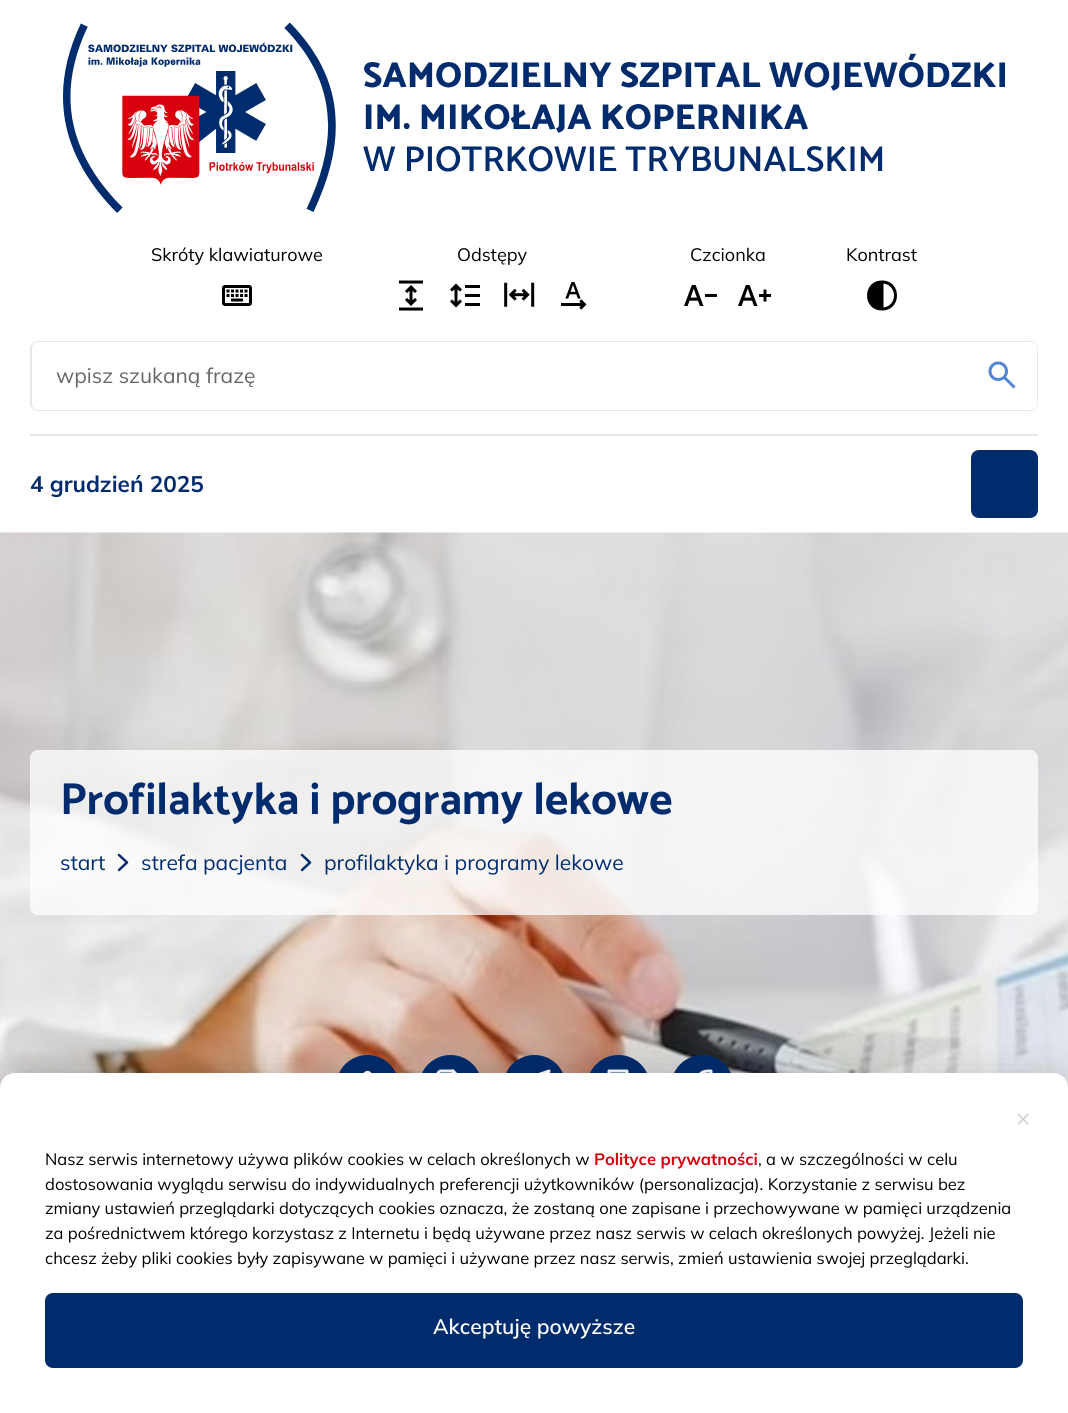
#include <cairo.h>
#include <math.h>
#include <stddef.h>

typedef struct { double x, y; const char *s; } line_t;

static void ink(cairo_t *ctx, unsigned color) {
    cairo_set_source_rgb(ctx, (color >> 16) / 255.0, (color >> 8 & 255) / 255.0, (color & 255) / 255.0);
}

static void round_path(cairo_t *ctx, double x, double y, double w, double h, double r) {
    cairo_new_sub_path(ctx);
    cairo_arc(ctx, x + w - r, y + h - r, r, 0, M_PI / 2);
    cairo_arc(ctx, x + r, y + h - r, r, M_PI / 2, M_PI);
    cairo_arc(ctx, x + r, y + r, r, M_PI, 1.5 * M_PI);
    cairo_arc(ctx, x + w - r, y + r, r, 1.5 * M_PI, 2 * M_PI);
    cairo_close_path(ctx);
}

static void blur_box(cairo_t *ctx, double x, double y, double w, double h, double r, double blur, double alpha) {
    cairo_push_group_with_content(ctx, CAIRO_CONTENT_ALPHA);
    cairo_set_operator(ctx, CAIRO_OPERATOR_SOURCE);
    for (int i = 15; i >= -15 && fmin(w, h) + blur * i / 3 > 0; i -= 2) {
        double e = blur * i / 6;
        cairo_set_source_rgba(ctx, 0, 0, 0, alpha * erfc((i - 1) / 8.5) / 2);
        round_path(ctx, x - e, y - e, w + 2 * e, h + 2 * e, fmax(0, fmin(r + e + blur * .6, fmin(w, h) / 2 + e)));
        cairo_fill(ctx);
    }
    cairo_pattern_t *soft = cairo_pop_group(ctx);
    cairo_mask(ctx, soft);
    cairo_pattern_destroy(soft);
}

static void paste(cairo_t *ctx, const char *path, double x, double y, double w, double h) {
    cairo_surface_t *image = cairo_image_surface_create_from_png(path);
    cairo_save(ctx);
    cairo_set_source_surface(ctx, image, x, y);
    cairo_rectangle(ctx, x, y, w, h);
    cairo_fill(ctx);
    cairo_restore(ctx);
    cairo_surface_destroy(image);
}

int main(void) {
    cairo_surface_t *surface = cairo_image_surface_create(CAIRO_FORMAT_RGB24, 1068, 1413);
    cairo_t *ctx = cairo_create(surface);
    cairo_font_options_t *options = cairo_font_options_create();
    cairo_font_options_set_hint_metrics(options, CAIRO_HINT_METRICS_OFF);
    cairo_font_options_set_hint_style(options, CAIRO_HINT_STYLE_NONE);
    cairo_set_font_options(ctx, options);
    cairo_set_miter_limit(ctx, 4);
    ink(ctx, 0xFFFFFF);
    cairo_paint(ctx);
    ink(ctx, 0xE4E7E9);
    cairo_rectangle(ctx, 30, 434, 1008, 2);
    cairo_fill(ctx);
    paste(ctx, "media/1.png", 63, 23, 942, 190);
    cairo_select_font_face(ctx, "Mulish", CAIRO_FONT_SLANT_NORMAL, CAIRO_FONT_WEIGHT_NORMAL);
    cairo_set_font_size(ctx, 18);
    ink(ctx, 0x000000);
    cairo_move_to(ctx, 151, 261);
    cairo_show_text(ctx, "Skróty klawiaturowe");
    paste(ctx, "media/2.png", 222, 285, 30, 21);
    cairo_move_to(ctx, 457, 261);
    cairo_show_text(ctx, "Odstępy");
    paste(ctx, "media/3.png", 399, 280, 24, 31);
    paste(ctx, "media/4.png", 450, 283, 30, 25);
    paste(ctx, "media/5.png", 504, 282, 31, 25);
    paste(ctx, "media/6.png", 561, 282, 26, 28);
    cairo_move_to(ctx, 690, 261);
    cairo_show_text(ctx, "Czcionka");
    paste(ctx, "media/7.png", 684, 285, 33, 21);
    paste(ctx, "media/8.png", 738, 285, 33, 21);
    cairo_move_to(ctx, 846, 261);
    cairo_show_text(ctx, "Kontrast");
    cairo_new_path(ctx);
    cairo_move_to(ctx, 882, 310.5);
    cairo_curve_to(ctx, 862, 310.5, 862, 280.5, 882, 280.5);
    cairo_curve_to(ctx, 902, 280.5, 902, 310.5, 882, 310.5);
    cairo_close_path(ctx);
    cairo_move_to(ctx, 883.5, 307.5);
    cairo_curve_to(ctx, 897.5, 305.5, 897.5, 285.5, 883.5, 283.5);
    cairo_close_path(ctx);
    cairo_fill(ctx);
    round_path(ctx, 31, 342, 1006, 68, 7);
    ink(ctx, 0xE4E7E9);
    cairo_stroke(ctx);
    ink(ctx, 0xFFFFFF);
    cairo_new_path(ctx);
    cairo_move_to(ctx, 38, 342);
    cairo_line_to(ctx, 969, 342);
    cairo_line_to(ctx, 969, 410);
    cairo_line_to(ctx, 38, 410);
    cairo_curve_to(ctx, 34.5, 410, 32, 407.5, 32, 404);
    cairo_line_to(ctx, 32, 348);
    cairo_curve_to(ctx, 32, 344.5, 34.5, 342, 38, 342);
    cairo_close_path(ctx);
    cairo_fill(ctx);
    cairo_set_font_size(ctx, 21);
    ink(ctx, 0x666666);
    cairo_move_to(ctx, 56, 383);
    cairo_show_text(ctx, "wpisz szukaną frazę");
    ink(ctx, 0xFFFFFF);
    cairo_new_path(ctx);
    cairo_move_to(ctx, 969, 342);
    cairo_line_to(ctx, 1031, 342);
    cairo_curve_to(ctx, 1034.5, 342, 1037, 344.5, 1037, 348);
    cairo_line_to(ctx, 1037, 404);
    cairo_curve_to(ctx, 1037, 407.5, 1034.5, 410, 1031, 410);
    cairo_line_to(ctx, 969, 410);
    cairo_close_path(ctx);
    cairo_fill(ctx);
    paste(ctx, "media/9.png", 988, 361, 28, 28);
    cairo_select_font_face(ctx, "Mulish", CAIRO_FONT_SLANT_NORMAL, CAIRO_FONT_WEIGHT_BOLD);
    cairo_set_font_size(ctx, 22.5);
    ink(ctx, 0x002B6D);
    cairo_move_to(ctx, 30, 492);
    cairo_show_text(ctx, "4 grudzień 2025");
    round_path(ctx, 971, 450, 67, 68, 8);
    cairo_fill(ctx);
    paste(ctx, "media/10.png", 0, 532, 1068, 556);
    cairo_set_source_rgba(ctx, 1, 1, 1, 0.75);
    round_path(ctx, 30, 750, 1008, 165, 8);
    cairo_fill(ctx);
    cairo_select_font_face(ctx, "Catamaran", CAIRO_FONT_SLANT_NORMAL, CAIRO_FONT_WEIGHT_BOLD);
    cairo_set_font_size(ctx, 45);
    ink(ctx, 0x002B6D);
    cairo_move_to(ctx, 60, 814);
    cairo_show_text(ctx, "Profilaktyka i programy lekowe");
    cairo_select_font_face(ctx, "Mulish", CAIRO_FONT_SLANT_NORMAL, CAIRO_FONT_WEIGHT_NORMAL);
    cairo_set_font_size(ctx, 21);
    cairo_move_to(ctx, 60, 870);
    cairo_show_text(ctx, "start");
    cairo_new_path(ctx);
    cairo_move_to(ctx, 119, 870);
    cairo_line_to(ctx, 127, 862.5);
    cairo_line_to(ctx, 119, 855);
    cairo_set_line_width(ctx, 2.5);
    cairo_set_line_cap(ctx, CAIRO_LINE_CAP_ROUND);
    cairo_set_line_join(ctx, CAIRO_LINE_JOIN_ROUND);
    cairo_stroke(ctx);
    cairo_move_to(ctx, 141, 870);
    cairo_show_text(ctx, "strefa pacjenta");
    cairo_new_path(ctx);
    cairo_move_to(ctx, 302, 870);
    cairo_line_to(ctx, 310, 862.5);
    cairo_line_to(ctx, 302, 855);
    cairo_stroke(ctx);
    cairo_move_to(ctx, 324, 870);
    cairo_show_text(ctx, "profilaktyka i programy lekowe");
    cairo_new_path(ctx);
    cairo_arc(ctx, 367.5, 1086.5, 31.5, 0, 2 * M_PI);
    cairo_fill(ctx);
    paste(ctx, "media/11.png", 363, 1070, 9, 3);
    cairo_arc(ctx, 450.5, 1086.5, 31.5, 0, 2 * M_PI);
    cairo_fill(ctx);
    paste(ctx, "media/12.png", 436, 1069, 21, 4);
    cairo_arc(ctx, 534.5, 1086.5, 31.5, 0, 2 * M_PI);
    cairo_fill(ctx);
    cairo_new_path(ctx);
    cairo_move_to(ctx, 549, 1071);
    cairo_line_to(ctx, 532.5, 1087.5);
    cairo_move_to(ctx, 549, 1071);
    cairo_line_to(ctx, 538.5, 1101);
    cairo_line_to(ctx, 532.5, 1087.5);
    cairo_line_to(ctx, 519, 1081.5);
    cairo_close_path(ctx);
    ink(ctx, 0xFFFFFF);
    cairo_set_line_width(ctx, 3);
    cairo_stroke(ctx);
    ink(ctx, 0x002B6D);
    cairo_arc(ctx, 618.5, 1086.5, 31.5, 0, 2 * M_PI);
    cairo_fill(ctx);
    paste(ctx, "media/13.png", 607, 1069, 22, 4);
    cairo_arc(ctx, 702.5, 1086.5, 31.5, 0, 2 * M_PI);
    cairo_fill(ctx);
    cairo_new_path(ctx);
    cairo_move_to(ctx, 711, 1071);
    cairo_curve_to(ctx, 706, 1071, 700.5, 1071, 699, 1077);
    cairo_line_to(ctx, 699, 1083);
    cairo_line_to(ctx, 694.5, 1083);
    cairo_line_to(ctx, 694.5, 1089);
    cairo_line_to(ctx, 699, 1089);
    cairo_line_to(ctx, 699, 1101);
    cairo_line_to(ctx, 705, 1101);
    cairo_line_to(ctx, 705, 1089);
    cairo_line_to(ctx, 709.5, 1089);
    cairo_line_to(ctx, 711, 1083);
    cairo_line_to(ctx, 705, 1083);
    cairo_curve_to(ctx, 705, 1076.5, 704.5, 1077, 711, 1077);
    cairo_close_path(ctx);
    ink(ctx, 0xFFFFFF);
    cairo_stroke(ctx);
    ink(ctx, 0x000000);
    blur_box(ctx, 0, 1073, 1068, 340, 15, 19, 0.15);
    ink(ctx, 0xFFFFFF);
    cairo_new_path(ctx);
    cairo_move_to(ctx, 15, 1073);
    cairo_line_to(ctx, 1053, 1073);
    cairo_curve_to(ctx, 1061.5, 1073, 1068, 1079.5, 1068, 1088);
    cairo_line_to(ctx, 1068, 1413);
    cairo_line_to(ctx, 0, 1413);
    cairo_line_to(ctx, 0, 1088);
    cairo_curve_to(ctx, 0, 1079.5, 6.5, 1073, 15, 1073);
    cairo_close_path(ctx);
    cairo_fill(ctx);
    cairo_set_font_size(ctx, 24);
    ink(ctx, 0xCBCBD7);
    cairo_move_to(ctx, 1016, 1126);
    cairo_show_text(ctx, "×");
    cairo_set_font_size(ctx, 16.5);
    ink(ctx, 0x000000);
    cairo_move_to(ctx, 45, 1165);
    cairo_show_text(ctx, "Nasz serwis internetowy używa plików cookies w celach określonych w");
    cairo_select_font_face(ctx, "Mulish", CAIRO_FONT_SLANT_NORMAL, CAIRO_FONT_WEIGHT_BOLD);
    ink(ctx, 0xD9000D);
    cairo_move_to(ctx, 594, 1165);
    cairo_show_text(ctx, "Polityce prywatności");
    cairo_select_font_face(ctx, "Mulish", CAIRO_FONT_SLANT_NORMAL, CAIRO_FONT_WEIGHT_NORMAL);
    ink(ctx, 0x000000);
    {
        static const line_t items[] = {
            {758, 1165, ", a w szczególności w celu"},
            {45, 1190, "dostosowania wyglądu serwisu do indywidualnych preferencji użytkowników (personalizacja). Korzystanie z serwisu bez"},
            {45, 1214, "zmiany ustawień przeglądarki dotyczących cookies oznacza, że zostaną one zapisane i przechowywane w pamięci urządzenia"},
            {45, 1239, "za pośrednictwem którego korzystasz z Internetu i będą używane przez nasz serwis w celach określonych powyżej. Jeżeli nie"},
            {45, 1264, "chcesz żeby pliki cookies były zapisywane w pamięci i używane przez nasz serwis, zmień ustawienia swojej przeglądarki."},
        };
        for (size_t i = 0; i < sizeof items / sizeof *items; i++) {
            cairo_move_to(ctx, items[i].x, items[i].y);
            cairo_show_text(ctx, items[i].s);
        }
    }
    ink(ctx, 0x002B6D);
    round_path(ctx, 45, 1293, 978, 75, 8);
    cairo_fill(ctx);
    cairo_select_font_face(ctx, "Mulish SemiBold", CAIRO_FONT_SLANT_NORMAL, CAIRO_FONT_WEIGHT_NORMAL);
    cairo_set_font_size(ctx, 21);
    ink(ctx, 0xFFFFFF);
    cairo_move_to(ctx, 433, 1334);
    cairo_show_text(ctx, "Akceptuję powyższe");
    cairo_surface_write_to_png(surface, "image.png");
    cairo_font_options_destroy(options);
    cairo_destroy(ctx);
    cairo_surface_destroy(surface);
    return 0;
}
